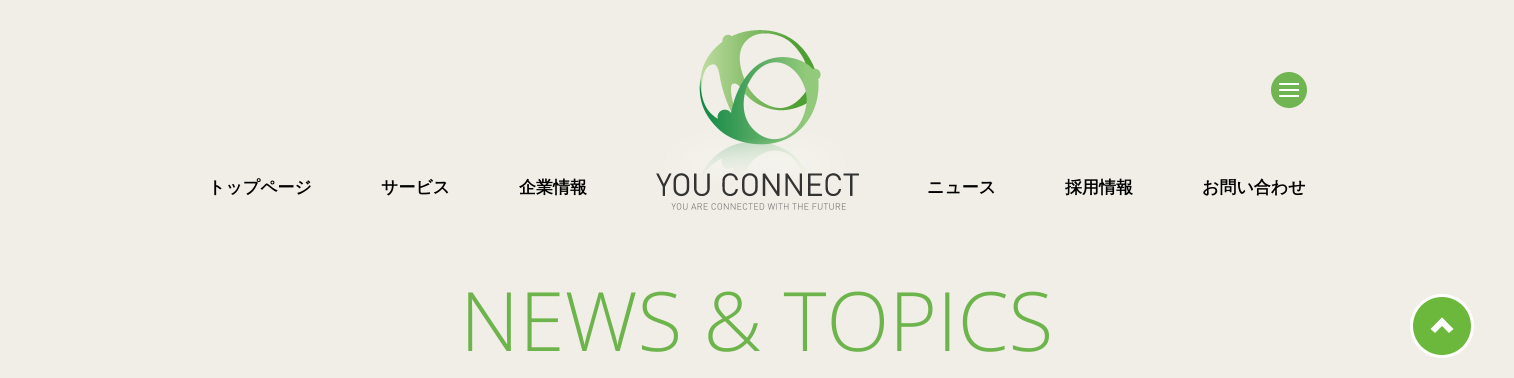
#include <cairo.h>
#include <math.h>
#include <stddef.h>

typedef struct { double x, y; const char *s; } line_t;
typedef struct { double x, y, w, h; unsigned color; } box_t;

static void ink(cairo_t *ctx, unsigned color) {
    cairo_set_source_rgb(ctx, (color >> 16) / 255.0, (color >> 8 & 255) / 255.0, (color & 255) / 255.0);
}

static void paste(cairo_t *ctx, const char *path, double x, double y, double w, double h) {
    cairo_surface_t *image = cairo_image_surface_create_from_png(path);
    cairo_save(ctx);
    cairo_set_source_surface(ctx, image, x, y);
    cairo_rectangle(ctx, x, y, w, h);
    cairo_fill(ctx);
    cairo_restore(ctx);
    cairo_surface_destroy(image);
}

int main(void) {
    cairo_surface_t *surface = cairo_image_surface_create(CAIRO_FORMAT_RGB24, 1514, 378);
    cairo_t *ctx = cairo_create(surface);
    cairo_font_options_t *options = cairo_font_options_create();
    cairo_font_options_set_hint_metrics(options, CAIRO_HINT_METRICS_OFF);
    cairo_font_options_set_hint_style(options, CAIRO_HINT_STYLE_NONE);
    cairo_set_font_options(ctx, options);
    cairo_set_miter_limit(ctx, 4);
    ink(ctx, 0xF0EEE6);
    cairo_paint(ctx);
    ink(ctx, 0x71B452);
    cairo_arc(ctx, 1289, 90, 18, 0, 2 * M_PI);
    cairo_fill(ctx);
    {
        static const box_t items[] = {
            {1279, 83, 20, 2, 0xFFFFFF},
            {1279, 89, 20, 2, 0xFFFFFF},
            {1279, 95, 20, 2, 0xFFFFFF},
        };
        for (size_t i = 0; i < sizeof items / sizeof *items; i++) {
            ink(ctx, items[i].color);
            cairo_rectangle(ctx, items[i].x, items[i].y, items[i].w, items[i].h);
            cairo_fill(ctx);
        }
    }
    cairo_select_font_face(ctx, "WenQuanYi Zen Hei", CAIRO_FONT_SLANT_NORMAL, CAIRO_FONT_WEIGHT_BOLD);
    cairo_set_font_size(ctx, 17);
    ink(ctx, 0x000000);
    {
        static const line_t items[] = {
            {208, 193, "トップページ"},
            {381, 193, "サービス"},
            {519, 193, "企業情報"},
        };
        for (size_t i = 0; i < sizeof items / sizeof *items; i++) {
            cairo_move_to(ctx, items[i].x, items[i].y);
            cairo_show_text(ctx, items[i].s);
        }
    }
    paste(ctx, "media/1.png", 656, 30, 203, 180);
    {
        static const line_t items[] = {
            {927, 193, "ニュース"},
            {1065, 193, "採用情報"},
            {1202, 193, "お問い合わせ"},
        };
        for (size_t i = 0; i < sizeof items / sizeof *items; i++) {
            cairo_move_to(ctx, items[i].x, items[i].y);
            cairo_show_text(ctx, items[i].s);
        }
    }
    cairo_select_font_face(ctx, "Open Sans Light", CAIRO_FONT_SLANT_NORMAL, CAIRO_FONT_WEIGHT_NORMAL);
    cairo_set_font_size(ctx, 82);
    ink(ctx, 0x6EB44C);
    cairo_move_to(ctx, 460, 351);
    cairo_show_text(ctx, "NEWS & TOPICS");
    ink(ctx, 0x6BB83D);
    cairo_new_path(ctx);
    cairo_arc(ctx, 1442, 326, 30.5, 0, 2 * M_PI);
    cairo_fill_preserve(ctx);
    ink(ctx, 0xFFFFFF);
    cairo_set_line_width(ctx, 3);
    cairo_stroke(ctx);
    cairo_new_path(ctx);
    cairo_move_to(ctx, 1430.5, 329);
    cairo_line_to(ctx, 1442, 317.5);
    cairo_line_to(ctx, 1446, 322);
    cairo_line_to(ctx, 1435, 333);
    cairo_close_path(ctx);
    cairo_fill(ctx);
    cairo_new_path(ctx);
    cairo_move_to(ctx, 1438, 322);
    cairo_line_to(ctx, 1442, 317.5);
    cairo_line_to(ctx, 1453.5, 329);
    cairo_line_to(ctx, 1449, 333);
    cairo_close_path(ctx);
    cairo_fill(ctx);
    cairo_surface_write_to_png(surface, "image.png");
    cairo_font_options_destroy(options);
    cairo_destroy(ctx);
    cairo_surface_destroy(surface);
    return 0;
}
